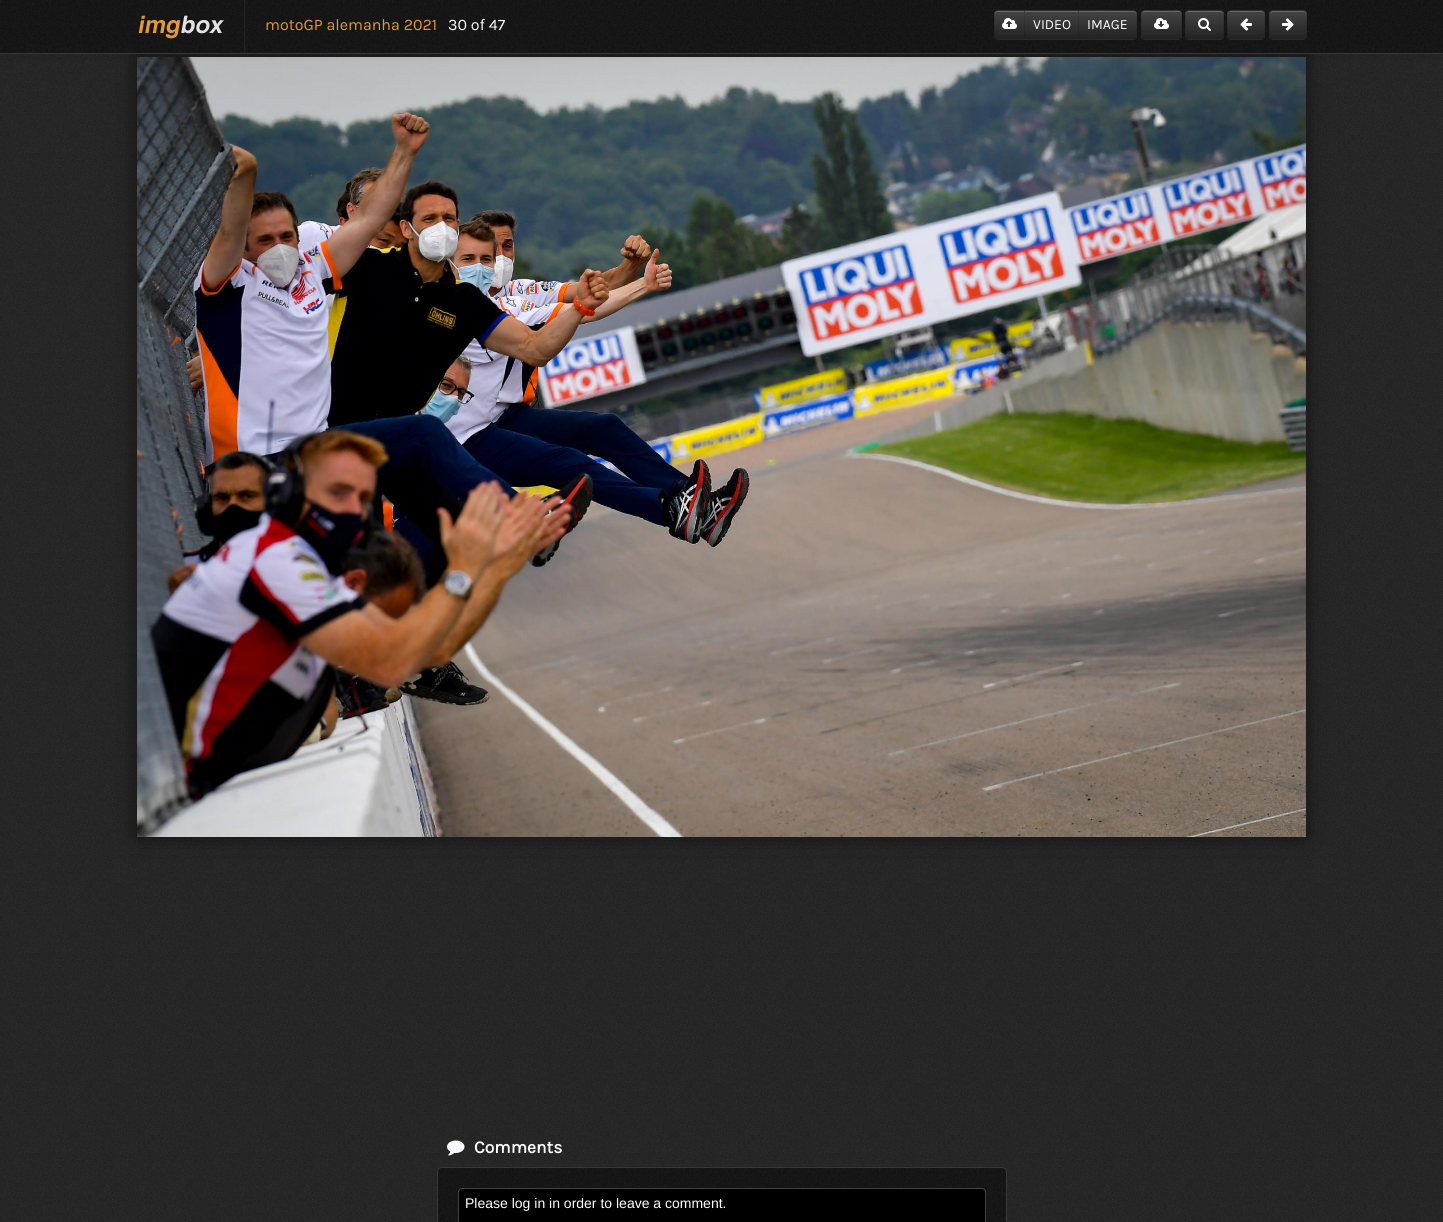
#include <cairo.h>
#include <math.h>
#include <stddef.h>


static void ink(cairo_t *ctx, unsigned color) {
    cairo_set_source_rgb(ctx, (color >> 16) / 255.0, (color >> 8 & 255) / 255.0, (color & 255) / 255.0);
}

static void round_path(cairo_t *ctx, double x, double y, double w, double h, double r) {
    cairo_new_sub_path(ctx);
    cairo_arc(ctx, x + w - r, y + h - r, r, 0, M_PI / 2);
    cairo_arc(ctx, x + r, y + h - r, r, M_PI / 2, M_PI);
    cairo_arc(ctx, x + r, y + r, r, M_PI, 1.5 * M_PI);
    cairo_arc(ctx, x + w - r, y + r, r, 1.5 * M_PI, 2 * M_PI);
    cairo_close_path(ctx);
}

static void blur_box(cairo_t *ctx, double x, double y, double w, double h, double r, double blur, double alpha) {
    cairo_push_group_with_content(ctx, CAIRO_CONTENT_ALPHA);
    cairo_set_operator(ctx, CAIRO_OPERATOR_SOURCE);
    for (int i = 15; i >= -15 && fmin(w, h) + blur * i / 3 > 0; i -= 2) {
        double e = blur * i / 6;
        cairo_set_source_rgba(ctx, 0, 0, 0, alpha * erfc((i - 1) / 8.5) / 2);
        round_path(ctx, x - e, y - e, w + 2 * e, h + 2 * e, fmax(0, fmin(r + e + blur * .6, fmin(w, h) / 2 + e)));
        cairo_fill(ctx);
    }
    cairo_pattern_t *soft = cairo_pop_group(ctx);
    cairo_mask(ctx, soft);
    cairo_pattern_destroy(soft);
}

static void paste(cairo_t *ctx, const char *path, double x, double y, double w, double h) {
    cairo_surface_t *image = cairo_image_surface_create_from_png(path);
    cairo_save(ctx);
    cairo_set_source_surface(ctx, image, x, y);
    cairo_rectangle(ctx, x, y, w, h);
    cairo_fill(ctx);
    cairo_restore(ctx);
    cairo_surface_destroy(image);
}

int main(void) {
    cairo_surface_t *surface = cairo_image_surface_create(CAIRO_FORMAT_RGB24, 1443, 1222);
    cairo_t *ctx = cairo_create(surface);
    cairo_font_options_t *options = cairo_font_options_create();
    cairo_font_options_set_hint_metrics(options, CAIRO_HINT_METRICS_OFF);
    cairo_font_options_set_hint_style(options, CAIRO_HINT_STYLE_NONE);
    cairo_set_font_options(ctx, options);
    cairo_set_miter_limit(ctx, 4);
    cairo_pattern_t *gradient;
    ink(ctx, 0xFFFFFF);
    cairo_paint(ctx);
    paste(ctx, "media/1.png", 0, 54, 1443, 1168);
    ink(ctx, 0x111111);
    blur_box(ctx, 137, 57, 1169, 780, 0, 10, 1);
    paste(ctx, "media/9.png", 137, 57, 1169, 780);
    ink(ctx, 0x000000);
    blur_box(ctx, 0, 1, 1443, 54, 0, 5, 0.1);
    paste(ctx, "media/2.png", 0, 0, 1443, 53);
    ink(ctx, 0x373737);
    cairo_rectangle(ctx, 0, 53, 1443, 1);
    cairo_fill(ctx);
    paste(ctx, "media/3.png", 138, 15, 86, 24);
    ink(ctx, 0x202020);
    cairo_rectangle(ctx, 244, 0, 1, 53);
    cairo_fill(ctx);
    cairo_select_font_face(ctx, "Karla", CAIRO_FONT_SLANT_NORMAL, CAIRO_FONT_WEIGHT_NORMAL);
    cairo_set_font_size(ctx, 16);
    ink(ctx, 0xE39938);
    cairo_move_to(ctx, 265, 30);
    cairo_show_text(ctx, "motoGP alemanha 2021");
    ink(ctx, 0xFDFEFF);
    cairo_move_to(ctx, 448, 30);
    cairo_show_text(ctx, "30 of 47");
    ink(ctx, 0x363636);
    cairo_new_path(ctx);
    cairo_move_to(ctx, 998, 10);
    cairo_line_to(ctx, 1025, 10);
    cairo_line_to(ctx, 1025, 40);
    cairo_line_to(ctx, 998, 40);
    cairo_curve_to(ctx, 996, 40, 994, 38, 994, 36);
    cairo_line_to(ctx, 994, 14);
    cairo_curve_to(ctx, 994, 12, 996, 10, 998, 10);
    cairo_close_path(ctx);
    cairo_fill(ctx);
    cairo_save(ctx);
    cairo_new_path(ctx);
    cairo_move_to(ctx, 998, 10);
    cairo_line_to(ctx, 1025, 10);
    cairo_line_to(ctx, 1025, 40);
    cairo_line_to(ctx, 998, 40);
    cairo_curve_to(ctx, 996, 40, 994, 38, 994, 36);
    cairo_line_to(ctx, 994, 14);
    cairo_curve_to(ctx, 994, 12, 996, 10, 998, 10);
    cairo_close_path(ctx);
    cairo_clip(ctx);
    gradient = cairo_pattern_create_linear(1010, 11, 1010, 39);
    cairo_pattern_add_color_stop_rgba(gradient, 0, 0.267, 0.267, 0.267, 1);
    cairo_pattern_add_color_stop_rgba(gradient, 1, 0.133, 0.133, 0.133, 1);
    cairo_set_source(ctx, gradient);
    cairo_pattern_destroy(gradient);
    cairo_rectangle(ctx, 994, 11, 30, 28);
    cairo_fill(ctx);
    cairo_restore(ctx);
    ink(ctx, 0x696969);
    cairo_new_path(ctx);
    cairo_move_to(ctx, 998, 12);
    cairo_line_to(ctx, 1024, 12);
    cairo_line_to(ctx, 1024, 11);
    cairo_line_to(ctx, 998, 11);
    cairo_curve_to(ctx, 996.5, 11, 995, 12.5, 995, 14);
    cairo_line_to(ctx, 995, 15);
    cairo_curve_to(ctx, 995, 13, 996, 12, 998, 12);
    cairo_close_path(ctx);
    cairo_fill(ctx);
    cairo_set_source_rgba(ctx, 0, 0, 0, 0.1);
    cairo_new_path(ctx);
    cairo_move_to(ctx, 998, 10);
    cairo_curve_to(ctx, 997, 10, 996, 10.5, 995, 11);
    cairo_line_to(ctx, 996, 12);
    cairo_curve_to(ctx, 996.5, 11.5, 997, 11, 998, 11);
    cairo_line_to(ctx, 1024, 11);
    cairo_line_to(ctx, 1025, 10);
    cairo_close_path(ctx);
    cairo_fill(ctx);
    cairo_set_source_rgba(ctx, 0, 0, 0, 0.25);
    cairo_new_path(ctx);
    cairo_move_to(ctx, 1025, 40);
    cairo_line_to(ctx, 1024, 39);
    cairo_line_to(ctx, 998, 39);
    cairo_curve_to(ctx, 997, 39, 996.5, 38.5, 996, 38);
    cairo_line_to(ctx, 995, 39);
    cairo_curve_to(ctx, 996, 39.5, 997, 40, 998, 40);
    cairo_close_path(ctx);
    cairo_fill(ctx);
    cairo_set_source_rgba(ctx, 0, 0, 0, 0.1);
    cairo_new_path(ctx);
    cairo_move_to(ctx, 994, 14);
    cairo_line_to(ctx, 994, 36);
    cairo_curve_to(ctx, 994, 37, 994.5, 38, 995, 39);
    cairo_line_to(ctx, 996, 38);
    cairo_curve_to(ctx, 995.5, 37.5, 995, 37, 995, 36);
    cairo_line_to(ctx, 995, 14);
    cairo_curve_to(ctx, 995, 13, 995.5, 12.5, 996, 12);
    cairo_line_to(ctx, 995, 11);
    cairo_curve_to(ctx, 994.5, 12, 994, 13, 994, 14);
    cairo_close_path(ctx);
    cairo_fill(ctx);
    paste(ctx, "media/4.png", 1002, 18, 15, 11);
    ink(ctx, 0x363636);
    cairo_rectangle(ctx, 1024, 10, 54, 30);
    cairo_fill(ctx);
    gradient = cairo_pattern_create_linear(1052, 11, 1052, 39);
    cairo_pattern_add_color_stop_rgba(gradient, 0, 0.267, 0.267, 0.267, 1);
    cairo_pattern_add_color_stop_rgba(gradient, 1, 0.133, 0.133, 0.133, 1);
    cairo_set_source(ctx, gradient);
    cairo_pattern_destroy(gradient);
    cairo_rectangle(ctx, 1024, 11, 54, 28);
    cairo_fill(ctx);
    ink(ctx, 0x696969);
    cairo_rectangle(ctx, 1025, 11, 53, 1);
    cairo_fill(ctx);
    ink(ctx, 0x313131);
    cairo_new_path(ctx);
    cairo_move_to(ctx, 1024, 10);
    cairo_line_to(ctx, 1079, 10);
    cairo_line_to(ctx, 1078, 11);
    cairo_line_to(ctx, 1025, 11);
    cairo_close_path(ctx);
    cairo_fill(ctx);
    cairo_set_source_rgba(ctx, 0, 0, 0, 0.25);
    cairo_new_path(ctx);
    cairo_move_to(ctx, 1079, 40);
    cairo_line_to(ctx, 1024, 40);
    cairo_line_to(ctx, 1025, 39);
    cairo_line_to(ctx, 1078, 39);
    cairo_close_path(ctx);
    cairo_fill(ctx);
    cairo_set_source_rgba(ctx, 0, 0, 0, 0.1);
    cairo_new_path(ctx);
    cairo_move_to(ctx, 1024, 40);
    cairo_line_to(ctx, 1024, 10);
    cairo_line_to(ctx, 1025, 11);
    cairo_line_to(ctx, 1025, 39);
    cairo_close_path(ctx);
    cairo_fill(ctx);
    cairo_set_font_size(ctx, 14);
    ink(ctx, 0xFDFEFF);
    cairo_move_to(ctx, 1033, 29);
    cairo_show_text(ctx, "VIDEO");
    ink(ctx, 0x363636);
    cairo_new_path(ctx);
    cairo_move_to(ctx, 1078, 10);
    cairo_line_to(ctx, 1133, 10);
    cairo_curve_to(ctx, 1135, 10, 1137, 12, 1137, 14);
    cairo_line_to(ctx, 1137, 36);
    cairo_curve_to(ctx, 1137, 38, 1135, 40, 1133, 40);
    cairo_line_to(ctx, 1078, 40);
    cairo_close_path(ctx);
    cairo_fill(ctx);
    cairo_save(ctx);
    cairo_new_path(ctx);
    cairo_move_to(ctx, 1078, 10);
    cairo_line_to(ctx, 1133, 10);
    cairo_curve_to(ctx, 1135, 10, 1137, 12, 1137, 14);
    cairo_line_to(ctx, 1137, 36);
    cairo_curve_to(ctx, 1137, 38, 1135, 40, 1133, 40);
    cairo_line_to(ctx, 1078, 40);
    cairo_close_path(ctx);
    cairo_clip(ctx);
    gradient = cairo_pattern_create_linear(1108, 11, 1108, 39);
    cairo_pattern_add_color_stop_rgba(gradient, 0, 0.267, 0.267, 0.267, 1);
    cairo_pattern_add_color_stop_rgba(gradient, 1, 0.133, 0.133, 0.133, 1);
    cairo_set_source(ctx, gradient);
    cairo_pattern_destroy(gradient);
    cairo_rectangle(ctx, 1078, 11, 59, 28);
    cairo_fill(ctx);
    cairo_restore(ctx);
    ink(ctx, 0x696969);
    cairo_new_path(ctx);
    cairo_move_to(ctx, 1079, 12);
    cairo_line_to(ctx, 1133, 12);
    cairo_curve_to(ctx, 1135, 12, 1136, 13, 1136, 15);
    cairo_line_to(ctx, 1136, 14);
    cairo_curve_to(ctx, 1136, 12, 1135, 11, 1133, 11);
    cairo_line_to(ctx, 1079, 11);
    cairo_close_path(ctx);
    cairo_fill(ctx);
    cairo_set_source_rgba(ctx, 0, 0, 0, 0.1);
    cairo_new_path(ctx);
    cairo_move_to(ctx, 1078, 10);
    cairo_line_to(ctx, 1079, 11);
    cairo_curve_to(ctx, 1085, 11, 1133, 10, 1135, 12);
    cairo_line_to(ctx, 1136, 11);
    cairo_line_to(ctx, 1133, 10);
    cairo_close_path(ctx);
    cairo_fill(ctx);
    cairo_new_path(ctx);
    cairo_move_to(ctx, 1137, 36);
    cairo_line_to(ctx, 1137, 14);
    cairo_curve_to(ctx, 1137, 13, 1136.5, 12, 1136, 11);
    cairo_line_to(ctx, 1135, 12);
    cairo_curve_to(ctx, 1136, 12, 1136, 13, 1136, 14);
    cairo_line_to(ctx, 1136, 36);
    cairo_curve_to(ctx, 1136, 37, 1136, 38, 1135, 38);
    cairo_line_to(ctx, 1136, 39);
    cairo_curve_to(ctx, 1136.5, 38, 1137, 37, 1137, 36);
    cairo_close_path(ctx);
    cairo_fill(ctx);
    cairo_set_source_rgba(ctx, 0, 0, 0, 0.25);
    cairo_new_path(ctx);
    cairo_move_to(ctx, 1133, 40);
    cairo_line_to(ctx, 1136, 39);
    cairo_line_to(ctx, 1135, 38);
    cairo_curve_to(ctx, 1133, 40, 1085, 39, 1079, 39);
    cairo_line_to(ctx, 1078, 40);
    cairo_close_path(ctx);
    cairo_fill(ctx);
    cairo_set_source_rgba(ctx, 0, 0, 0, 0.1);
    cairo_new_path(ctx);
    cairo_move_to(ctx, 1078, 10);
    cairo_line_to(ctx, 1078, 40);
    cairo_line_to(ctx, 1079, 39);
    cairo_line_to(ctx, 1079, 11);
    cairo_close_path(ctx);
    cairo_fill(ctx);
    ink(ctx, 0xFDFEFF);
    cairo_move_to(ctx, 1087, 29);
    cairo_show_text(ctx, "IMAGE");
    ink(ctx, 0x363636);
    round_path(ctx, 1141, 10, 41, 30, 4);
    cairo_fill(ctx);
    cairo_save(ctx);
    round_path(ctx, 1141, 10, 41, 30, 4);
    cairo_clip(ctx);
    gradient = cairo_pattern_create_linear(1162, 11, 1162, 39);
    cairo_pattern_add_color_stop_rgba(gradient, 0, 0.267, 0.267, 0.267, 1);
    cairo_pattern_add_color_stop_rgba(gradient, 1, 0.133, 0.133, 0.133, 1);
    cairo_set_source(ctx, gradient);
    cairo_pattern_destroy(gradient);
    cairo_rectangle(ctx, 1141, 11, 41, 28);
    cairo_fill(ctx);
    cairo_restore(ctx);
    ink(ctx, 0x696969);
    cairo_new_path(ctx);
    cairo_move_to(ctx, 1145, 12);
    cairo_line_to(ctx, 1178, 12);
    cairo_curve_to(ctx, 1180, 12, 1181, 13, 1181, 15);
    cairo_curve_to(ctx, 1181, 9.5, 1177, 11, 1172.5, 11);
    cairo_line_to(ctx, 1150.5, 11);
    cairo_curve_to(ctx, 1146, 11, 1142, 9.5, 1142, 15);
    cairo_curve_to(ctx, 1142, 13, 1143, 12, 1145, 12);
    cairo_close_path(ctx);
    cairo_fill(ctx);
    cairo_new_path(ctx);
    cairo_move_to(ctx, 1180.5, 38.5);
    cairo_curve_to(ctx, 1180, 39, 1179, 39.5, 1178, 39.5);
    cairo_line_to(ctx, 1145, 39.5);
    cairo_curve_to(ctx, 1144, 39.5, 1143, 39, 1142.5, 38.5);
    cairo_set_source_rgba(ctx, 0, 0, 0, 0.25);
    cairo_set_line_width(ctx, 1);
    cairo_stroke(ctx);
    cairo_new_path(ctx);
    cairo_move_to(ctx, 1142.5, 38.5);
    cairo_curve_to(ctx, 1140.5, 36.5, 1141.5, 28, 1141.5, 25);
    cairo_curve_to(ctx, 1141.5, 6, 1140, 10.5, 1161.5, 10.5);
    cairo_curve_to(ctx, 1183, 10.5, 1181.5, 6, 1181.5, 25);
    cairo_curve_to(ctx, 1181.5, 28, 1182.5, 36.5, 1180.5, 38.5);
    cairo_set_source_rgba(ctx, 0, 0, 0, 0.1);
    cairo_stroke(ctx);
    paste(ctx, "media/5.png", 1154, 18, 15, 11);
    ink(ctx, 0x363636);
    round_path(ctx, 1185, 10, 39, 30, 4);
    cairo_fill(ctx);
    cairo_save(ctx);
    round_path(ctx, 1185, 10, 39, 30, 4);
    cairo_clip(ctx);
    gradient = cairo_pattern_create_linear(1205, 11, 1205, 39);
    cairo_pattern_add_color_stop_rgba(gradient, 0, 0.267, 0.267, 0.267, 1);
    cairo_pattern_add_color_stop_rgba(gradient, 1, 0.133, 0.133, 0.133, 1);
    cairo_set_source(ctx, gradient);
    cairo_pattern_destroy(gradient);
    cairo_rectangle(ctx, 1185, 11, 39, 28);
    cairo_fill(ctx);
    cairo_restore(ctx);
    ink(ctx, 0x696969);
    cairo_new_path(ctx);
    cairo_move_to(ctx, 1189, 12);
    cairo_line_to(ctx, 1220, 12);
    cairo_curve_to(ctx, 1222, 12, 1223, 13, 1223, 15);
    cairo_curve_to(ctx, 1223, 10, 1219, 11, 1215, 11);
    cairo_line_to(ctx, 1194, 11);
    cairo_curve_to(ctx, 1190, 11, 1186, 10, 1186, 15);
    cairo_curve_to(ctx, 1186, 13, 1187, 12, 1189, 12);
    cairo_close_path(ctx);
    cairo_fill(ctx);
    cairo_new_path(ctx);
    cairo_move_to(ctx, 1222.5, 38.5);
    cairo_curve_to(ctx, 1222, 39, 1221, 39.5, 1220, 39.5);
    cairo_line_to(ctx, 1189, 39.5);
    cairo_curve_to(ctx, 1188, 39.5, 1187, 39, 1186.5, 38.5);
    cairo_set_source_rgba(ctx, 0, 0, 0, 0.25);
    cairo_stroke(ctx);
    cairo_new_path(ctx);
    cairo_move_to(ctx, 1186.5, 38.5);
    cairo_curve_to(ctx, 1186, 38, 1185.5, 37, 1185.5, 36);
    cairo_line_to(ctx, 1185.5, 14);
    cairo_curve_to(ctx, 1185.5, 13, 1186, 12, 1186.5, 11.5);
    cairo_curve_to(ctx, 1187, 11, 1188, 10.5, 1189, 10.5);
    cairo_line_to(ctx, 1220, 10.5);
    cairo_curve_to(ctx, 1221, 10.5, 1222, 11, 1222.5, 11.5);
    cairo_curve_to(ctx, 1223, 12, 1223.5, 13, 1223.5, 14);
    cairo_line_to(ctx, 1223.5, 36);
    cairo_curve_to(ctx, 1223.5, 37, 1223, 38, 1222.5, 38.5);
    cairo_set_source_rgba(ctx, 0, 0, 0, 0.1);
    cairo_stroke(ctx);
    paste(ctx, "media/6.png", 1198, 18, 13, 13);
    ink(ctx, 0x363636);
    round_path(ctx, 1227, 10, 38, 30, 4);
    cairo_fill(ctx);
    cairo_save(ctx);
    round_path(ctx, 1227, 10, 38, 30, 4);
    cairo_clip(ctx);
    gradient = cairo_pattern_create_linear(1246, 11, 1246, 39);
    cairo_pattern_add_color_stop_rgba(gradient, 0, 0.267, 0.267, 0.267, 1);
    cairo_pattern_add_color_stop_rgba(gradient, 1, 0.133, 0.133, 0.133, 1);
    cairo_set_source(ctx, gradient);
    cairo_pattern_destroy(gradient);
    cairo_rectangle(ctx, 1227, 11, 38, 28);
    cairo_fill(ctx);
    cairo_restore(ctx);
    ink(ctx, 0x696969);
    cairo_new_path(ctx);
    cairo_move_to(ctx, 1231, 12);
    cairo_line_to(ctx, 1261, 12);
    cairo_curve_to(ctx, 1263, 12, 1264, 13, 1264, 15);
    cairo_curve_to(ctx, 1264, 10, 1260, 11, 1256, 11);
    cairo_line_to(ctx, 1236, 11);
    cairo_curve_to(ctx, 1232, 11, 1228, 10, 1228, 15);
    cairo_curve_to(ctx, 1228, 13, 1229, 12, 1231, 12);
    cairo_close_path(ctx);
    cairo_fill(ctx);
    cairo_new_path(ctx);
    cairo_move_to(ctx, 1263.5, 38.5);
    cairo_curve_to(ctx, 1263, 39, 1262, 39.5, 1261, 39.5);
    cairo_line_to(ctx, 1231, 39.5);
    cairo_curve_to(ctx, 1230, 39.5, 1229, 39, 1228.5, 38.5);
    cairo_set_source_rgba(ctx, 0, 0, 0, 0.25);
    cairo_stroke(ctx);
    cairo_new_path(ctx);
    cairo_move_to(ctx, 1228.5, 38.5);
    cairo_curve_to(ctx, 1228, 38, 1227.5, 37, 1227.5, 36);
    cairo_line_to(ctx, 1227.5, 14);
    cairo_curve_to(ctx, 1227.5, 13, 1228, 12, 1228.5, 11.5);
    cairo_curve_to(ctx, 1229, 11, 1230, 10.5, 1231, 10.5);
    cairo_line_to(ctx, 1261, 10.5);
    cairo_curve_to(ctx, 1262, 10.5, 1263, 11, 1263.5, 11.5);
    cairo_curve_to(ctx, 1264, 12, 1264.5, 13, 1264.5, 14);
    cairo_line_to(ctx, 1264.5, 36);
    cairo_curve_to(ctx, 1264.5, 37, 1264, 38, 1263.5, 38.5);
    cairo_set_source_rgba(ctx, 0, 0, 0, 0.1);
    cairo_stroke(ctx);
    paste(ctx, "media/7.png", 1240, 18, 12, 13);
    ink(ctx, 0x363636);
    round_path(ctx, 1269, 10, 38, 30, 4);
    cairo_fill(ctx);
    cairo_save(ctx);
    round_path(ctx, 1269, 10, 38, 30, 4);
    cairo_clip(ctx);
    gradient = cairo_pattern_create_linear(1288, 11, 1288, 39);
    cairo_pattern_add_color_stop_rgba(gradient, 0, 0.267, 0.267, 0.267, 1);
    cairo_pattern_add_color_stop_rgba(gradient, 1, 0.133, 0.133, 0.133, 1);
    cairo_set_source(ctx, gradient);
    cairo_pattern_destroy(gradient);
    cairo_rectangle(ctx, 1269, 11, 38, 28);
    cairo_fill(ctx);
    cairo_restore(ctx);
    ink(ctx, 0x696969);
    cairo_new_path(ctx);
    cairo_move_to(ctx, 1273, 12);
    cairo_line_to(ctx, 1303, 12);
    cairo_curve_to(ctx, 1305, 12, 1306, 13, 1306, 15);
    cairo_curve_to(ctx, 1306, 10, 1302, 11, 1298, 11);
    cairo_line_to(ctx, 1278, 11);
    cairo_curve_to(ctx, 1274, 11, 1270, 10, 1270, 15);
    cairo_curve_to(ctx, 1270, 13, 1271, 12, 1273, 12);
    cairo_close_path(ctx);
    cairo_fill(ctx);
    cairo_new_path(ctx);
    cairo_move_to(ctx, 1305.5, 38.5);
    cairo_curve_to(ctx, 1305, 39, 1304, 39.5, 1303, 39.5);
    cairo_line_to(ctx, 1273, 39.5);
    cairo_curve_to(ctx, 1272, 39.5, 1271, 39, 1270.5, 38.5);
    cairo_set_source_rgba(ctx, 0, 0, 0, 0.25);
    cairo_stroke(ctx);
    cairo_new_path(ctx);
    cairo_move_to(ctx, 1270.5, 38.5);
    cairo_curve_to(ctx, 1270, 38, 1269.5, 37, 1269.5, 36);
    cairo_line_to(ctx, 1269.5, 14);
    cairo_curve_to(ctx, 1269.5, 13, 1270, 12, 1270.5, 11.5);
    cairo_curve_to(ctx, 1271, 11, 1272, 10.5, 1273, 10.5);
    cairo_line_to(ctx, 1303, 10.5);
    cairo_curve_to(ctx, 1304, 10.5, 1305, 11, 1305.5, 11.5);
    cairo_curve_to(ctx, 1306, 12, 1306.5, 13, 1306.5, 14);
    cairo_line_to(ctx, 1306.5, 36);
    cairo_curve_to(ctx, 1306.5, 37, 1306, 38, 1305.5, 38.5);
    cairo_set_source_rgba(ctx, 0, 0, 0, 0.1);
    cairo_stroke(ctx);
    paste(ctx, "media/8.png", 1282, 18, 12, 13);
    paste(ctx, "media/10.png", 447, 1140, 18, 16);
    cairo_select_font_face(ctx, "Karla", CAIRO_FONT_SLANT_NORMAL, CAIRO_FONT_WEIGHT_BOLD);
    cairo_set_font_size(ctx, 17.5);
    ink(ctx, 0xFDFEFF);
    cairo_move_to(ctx, 474, 1153);
    cairo_show_text(ctx, "Comments");
    paste(ctx, "media/11.png", 437, 1167, 570, 55);
    round_path(ctx, 437.5, 1167.5, 569, 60, 4.5);
    ink(ctx, 0x373737);
    cairo_stroke(ctx);
    ink(ctx, 0x000000);
    round_path(ctx, 458.5, 1188.5, 527, 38, 3.5);
    cairo_fill_preserve(ctx);
    ink(ctx, 0x424242);
    cairo_stroke(ctx);
    cairo_select_font_face(ctx, "Liberation Sans", CAIRO_FONT_SLANT_NORMAL, CAIRO_FONT_WEIGHT_NORMAL);
    cairo_set_font_size(ctx, 14);
    ink(ctx, 0xFDFEFF);
    cairo_move_to(ctx, 465, 1208);
    cairo_show_text(ctx, "Please log in in order to leave a comment.");
    cairo_surface_write_to_png(surface, "image.png");
    cairo_font_options_destroy(options);
    cairo_destroy(ctx);
    cairo_surface_destroy(surface);
    return 0;
}
